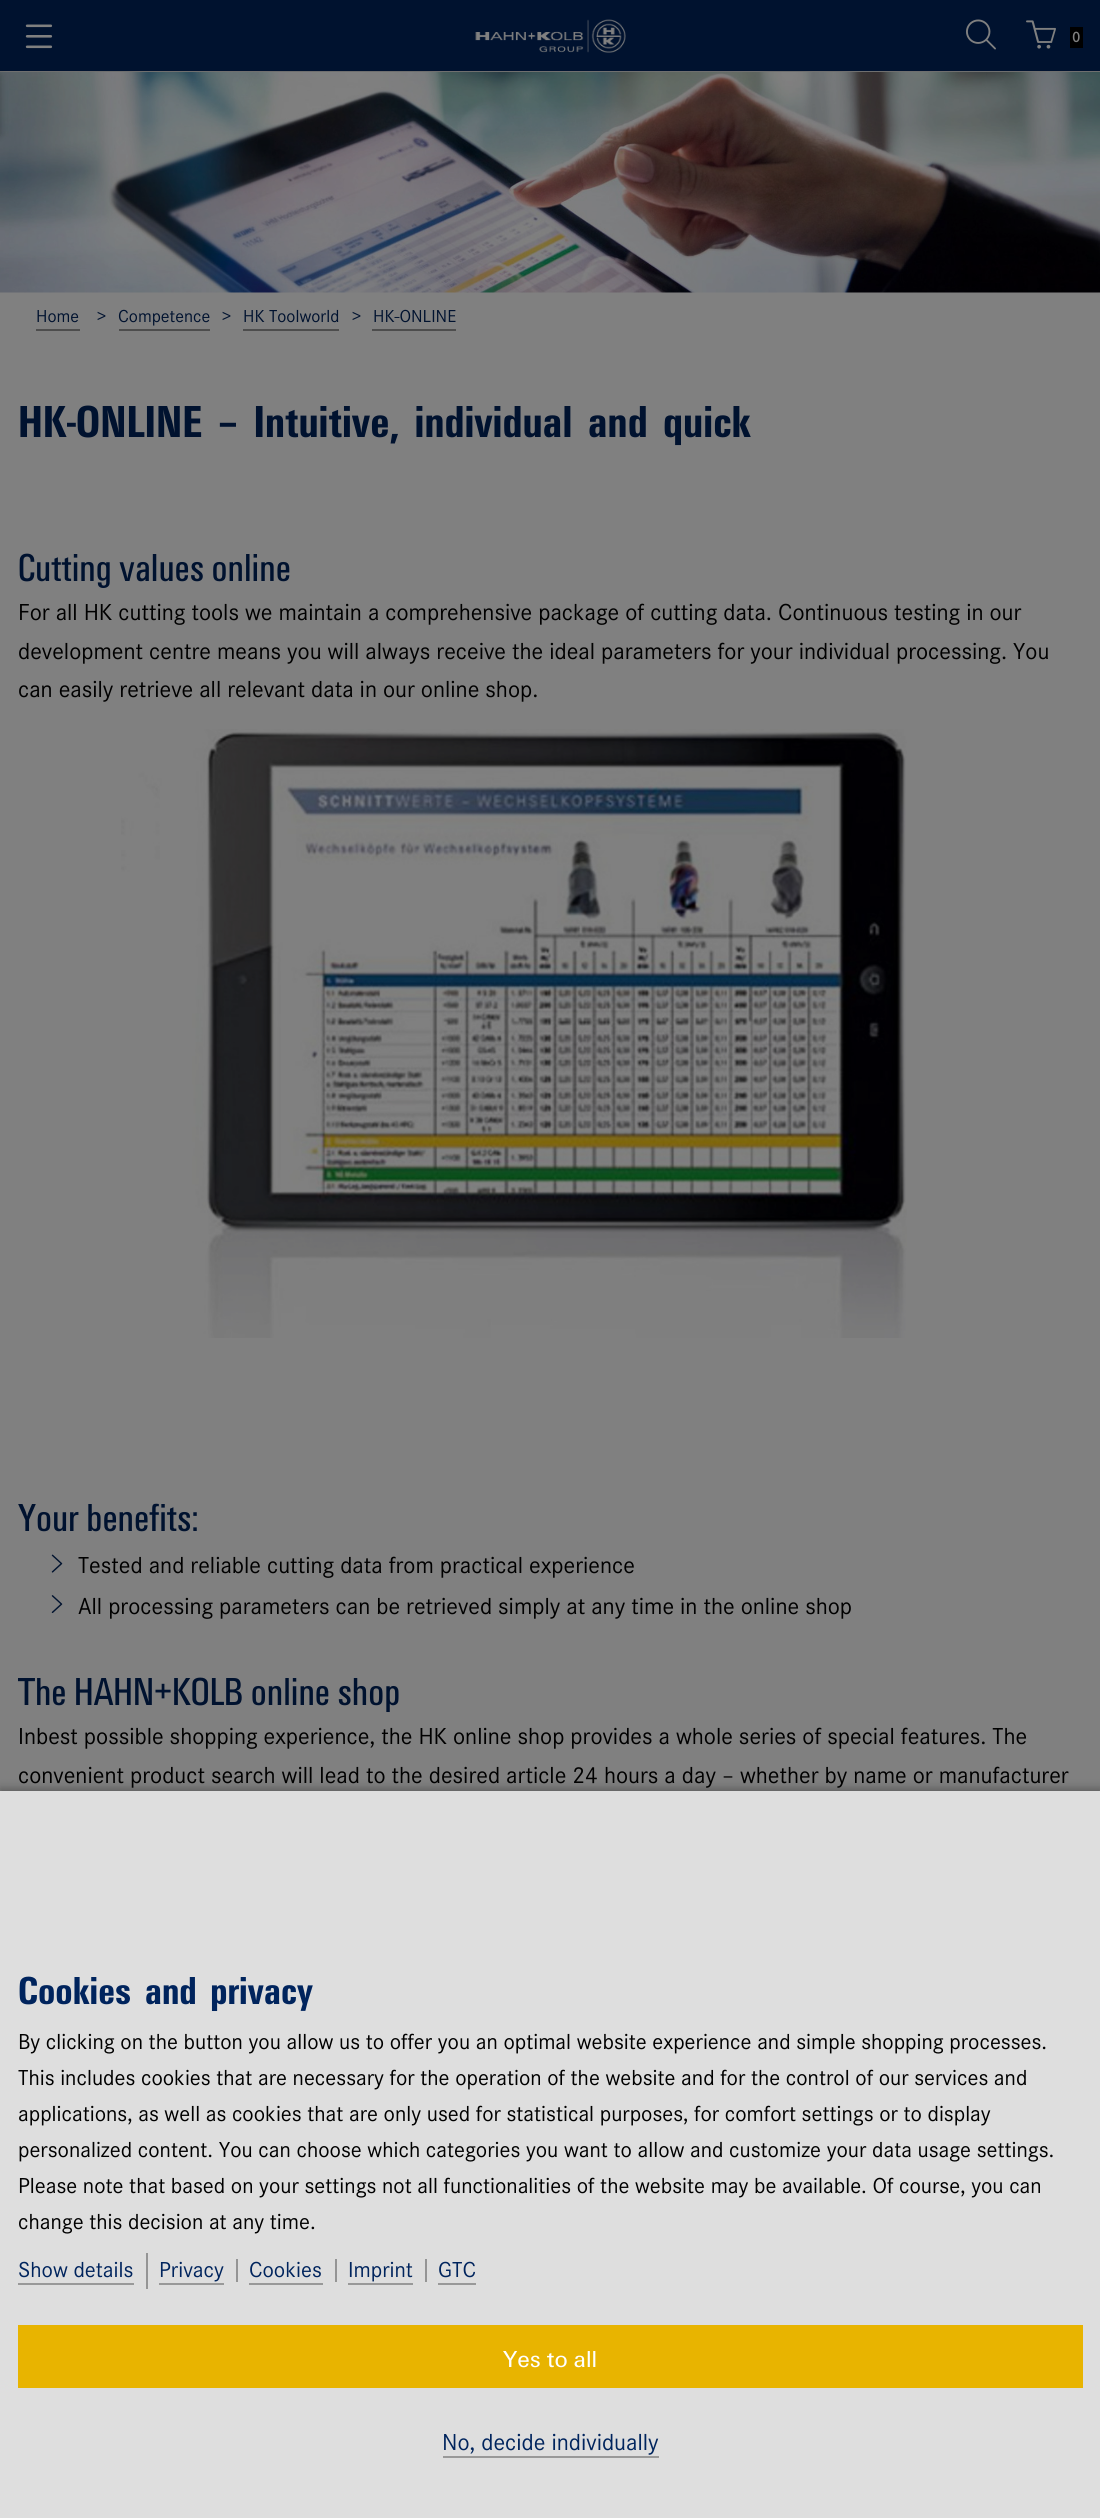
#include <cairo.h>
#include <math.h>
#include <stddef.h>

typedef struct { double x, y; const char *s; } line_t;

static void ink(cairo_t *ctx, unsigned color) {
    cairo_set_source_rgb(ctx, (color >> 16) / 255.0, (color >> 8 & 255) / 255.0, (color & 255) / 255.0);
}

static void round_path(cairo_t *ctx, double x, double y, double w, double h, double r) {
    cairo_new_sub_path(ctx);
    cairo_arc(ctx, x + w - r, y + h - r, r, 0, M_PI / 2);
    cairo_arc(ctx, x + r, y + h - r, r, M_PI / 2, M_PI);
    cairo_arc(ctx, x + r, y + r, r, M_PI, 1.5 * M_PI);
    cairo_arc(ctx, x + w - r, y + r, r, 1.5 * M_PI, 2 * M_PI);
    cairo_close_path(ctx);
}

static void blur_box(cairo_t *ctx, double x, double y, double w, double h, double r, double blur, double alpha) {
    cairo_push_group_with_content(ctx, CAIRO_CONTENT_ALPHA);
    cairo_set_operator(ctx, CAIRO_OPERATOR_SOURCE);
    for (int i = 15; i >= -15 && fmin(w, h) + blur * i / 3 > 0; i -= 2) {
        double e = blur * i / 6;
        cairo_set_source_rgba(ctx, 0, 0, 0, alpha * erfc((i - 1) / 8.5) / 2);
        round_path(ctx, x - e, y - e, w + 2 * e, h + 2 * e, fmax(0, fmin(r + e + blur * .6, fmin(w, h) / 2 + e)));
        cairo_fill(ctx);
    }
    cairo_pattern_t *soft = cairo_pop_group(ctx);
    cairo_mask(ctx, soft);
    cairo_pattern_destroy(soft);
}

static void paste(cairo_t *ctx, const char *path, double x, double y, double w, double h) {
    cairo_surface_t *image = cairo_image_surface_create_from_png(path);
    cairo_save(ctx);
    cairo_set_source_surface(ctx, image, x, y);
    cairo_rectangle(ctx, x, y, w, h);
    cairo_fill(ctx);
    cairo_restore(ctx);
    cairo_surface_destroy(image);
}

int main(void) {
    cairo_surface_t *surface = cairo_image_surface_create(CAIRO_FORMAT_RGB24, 1100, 2518);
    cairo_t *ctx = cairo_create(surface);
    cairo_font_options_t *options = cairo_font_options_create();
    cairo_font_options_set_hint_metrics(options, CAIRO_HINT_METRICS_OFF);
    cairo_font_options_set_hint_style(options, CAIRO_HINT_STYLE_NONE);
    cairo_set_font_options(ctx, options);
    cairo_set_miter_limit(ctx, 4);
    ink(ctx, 0x808080);
    cairo_paint(ctx);
    ink(ctx, 0x00122F);
    cairo_rectangle(ctx, 0, 0, 1100, 71);
    cairo_fill(ctx);
    ink(ctx, 0x6F6F6F);
    cairo_rectangle(ctx, 0, 71, 1100, 1);
    cairo_fill(ctx);
    paste(ctx, "media/1.png", 25, 24, 28, 25);
    paste(ctx, "media/2.png", 475, 19, 151, 34);
    paste(ctx, "media/3.png", 966, 19, 30, 31);
    paste(ctx, "media/4.png", 1026, 20, 30, 29);
    ink(ctx, 0x000000);
    cairo_rectangle(ctx, 1070, 27, 13, 21);
    cairo_fill(ctx);
    cairo_select_font_face(ctx, "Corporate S", CAIRO_FONT_SLANT_NORMAL, CAIRO_FONT_WEIGHT_BOLD);
    cairo_set_font_size(ctx, 15);
    ink(ctx, 0x808080);
    cairo_move_to(ctx, 1072, 42);
    cairo_show_text(ctx, "0");
    paste(ctx, "media/5.png", 0, 72, 1100, 221);
    ink(ctx, 0x000000);
    blur_box(ctx, -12, 75, 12, 60, 0, 4, 0.26);
    cairo_select_font_face(ctx, "Corporate S", CAIRO_FONT_SLANT_NORMAL, CAIRO_FONT_WEIGHT_NORMAL);
    cairo_set_font_size(ctx, 18);
    ink(ctx, 0x00122F);
    cairo_move_to(ctx, 36, 322);
    cairo_show_text(ctx, "Home");
    ink(ctx, 0x4D4D4D);
    cairo_rectangle(ctx, 36, 329, 44, 2);
    cairo_fill(ctx);
    ink(ctx, 0x00122F);
    cairo_move_to(ctx, 97, 322);
    cairo_show_text(ctx, ">");
    cairo_move_to(ctx, 118, 322);
    cairo_show_text(ctx, "Competence");
    ink(ctx, 0x4D4D4D);
    cairo_rectangle(ctx, 119, 329, 91, 2);
    cairo_fill(ctx);
    ink(ctx, 0x00122F);
    cairo_move_to(ctx, 222, 322);
    cairo_show_text(ctx, ">");
    cairo_move_to(ctx, 243, 322);
    cairo_show_text(ctx, "HK Toolworld");
    ink(ctx, 0x4D4D4D);
    cairo_rectangle(ctx, 243, 329, 96, 2);
    cairo_fill(ctx);
    ink(ctx, 0x00122F);
    cairo_move_to(ctx, 352, 322);
    cairo_show_text(ctx, ">");
    cairo_move_to(ctx, 373, 322);
    cairo_show_text(ctx, "HK-ONLINE");
    ink(ctx, 0x4D4D4D);
    cairo_rectangle(ctx, 372, 329, 84, 2);
    cairo_fill(ctx);
    cairo_select_font_face(ctx, "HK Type", CAIRO_FONT_SLANT_NORMAL, CAIRO_FONT_WEIGHT_BOLD);
    cairo_set_font_size(ctx, 46.5);
    ink(ctx, 0x00122F);
    cairo_move_to(ctx, 18, 437);
    cairo_show_text(ctx, "HK-ONLINE – Intuitive, individual and quick");
    cairo_select_font_face(ctx, "HK Type", CAIRO_FONT_SLANT_NORMAL, CAIRO_FONT_WEIGHT_NORMAL);
    cairo_set_font_size(ctx, 40.5);
    cairo_move_to(ctx, 18, 581);
    cairo_show_text(ctx, "Cutting values online");
    cairo_select_font_face(ctx, "Corporate S", CAIRO_FONT_SLANT_NORMAL, CAIRO_FONT_WEIGHT_NORMAL);
    cairo_set_font_size(ctx, 24);
    ink(ctx, 0x000000);
    {
        static const line_t items[] = {
            {18, 620, "For all HK cutting tools we maintain a comprehensive package of cutting data. Continuous testing in our"},
            {18, 659, "development centre means you will always receive the ideal parameters for your individual processing. You"},
            {18, 697, "can easily retrieve all relevant data in our online shop."},
        };
        for (size_t i = 0; i < sizeof items / sizeof *items; i++) {
            cairo_move_to(ctx, items[i].x, items[i].y);
            cairo_show_text(ctx, items[i].s);
        }
    }
    paste(ctx, "media/6.png", 121, 729, 786, 609);
    cairo_select_font_face(ctx, "HK Type", CAIRO_FONT_SLANT_NORMAL, CAIRO_FONT_WEIGHT_NORMAL);
    cairo_set_font_size(ctx, 40.5);
    ink(ctx, 0x00122F);
    cairo_move_to(ctx, 18, 1531);
    cairo_show_text(ctx, "Your benefits:");
    paste(ctx, "media/7.png", 51, 1554, 12, 19);
    cairo_select_font_face(ctx, "Corporate S", CAIRO_FONT_SLANT_NORMAL, CAIRO_FONT_WEIGHT_NORMAL);
    cairo_set_font_size(ctx, 24);
    ink(ctx, 0x000000);
    cairo_move_to(ctx, 78, 1573);
    cairo_show_text(ctx, "Tested and reliable cutting data from practical experience");
    paste(ctx, "media/8.png", 51, 1595, 12, 18);
    cairo_move_to(ctx, 78, 1614);
    cairo_show_text(ctx, "All processing parameters can be retrieved simply at any time in the online shop");
    cairo_select_font_face(ctx, "HK Type", CAIRO_FONT_SLANT_NORMAL, CAIRO_FONT_WEIGHT_NORMAL);
    cairo_set_font_size(ctx, 40.5);
    ink(ctx, 0x00122F);
    cairo_move_to(ctx, 18, 1705);
    cairo_show_text(ctx, "The HAHN+KOLB online shop");
    cairo_select_font_face(ctx, "Corporate S", CAIRO_FONT_SLANT_NORMAL, CAIRO_FONT_WEIGHT_NORMAL);
    cairo_set_font_size(ctx, 24);
    ink(ctx, 0x000000);
    cairo_move_to(ctx, 18, 1744);
    cairo_show_text(ctx, "Inbest possible shopping experience, the HK online shop provides a whole series of special features. The");
    cairo_move_to(ctx, 18, 1783);
    cairo_show_text(ctx, "convenient product search will lead to the desired article 24 hours a day – whether by name or manufacturer");
    ink(ctx, 0x000000);
    blur_box(ctx, 0, 1788, 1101, 728, 0, 4, 0.26);
    ink(ctx, 0xDEDEDE);
    cairo_rectangle(ctx, 0, 1791, 1100, 727);
    cairo_fill(ctx);
    cairo_select_font_face(ctx, "HK Type", CAIRO_FONT_SLANT_NORMAL, CAIRO_FONT_WEIGHT_BOLD);
    cairo_set_font_size(ctx, 40.5);
    ink(ctx, 0x00245D);
    cairo_move_to(ctx, 18, 2004);
    cairo_show_text(ctx, "Cookies and privacy");
    cairo_select_font_face(ctx, "Corporate S", CAIRO_FONT_SLANT_NORMAL, CAIRO_FONT_WEIGHT_NORMAL);
    cairo_set_font_size(ctx, 22.5);
    ink(ctx, 0x000000);
    {
        static const line_t items[] = {
            {18, 2049, "By clicking on the button you allow us to offer you an optimal website experience and simple shopping processes."},
            {18, 2085, "This includes cookies that are necessary for the operation of the website and for the control of our services and"},
            {18, 2121, "applications, as well as cookies that are only used for statistical purposes, for comfort settings or to display"},
            {18, 2157, "personalized content. You can choose which categories you want to allow and customize your data usage settings."},
            {18, 2193, "Please note that based on your settings not all functionalities of the website may be available. Of course, you can"},
            {18, 2229, "change this decision at any time."},
        };
        for (size_t i = 0; i < sizeof items / sizeof *items; i++) {
            cairo_move_to(ctx, items[i].x, items[i].y);
            cairo_show_text(ctx, items[i].s);
        }
    }
    ink(ctx, 0x959595);
    cairo_rectangle(ctx, 146, 2253, 2, 36);
    cairo_fill(ctx);
    ink(ctx, 0x00245D);
    cairo_move_to(ctx, 18, 2277);
    cairo_show_text(ctx, "Show details");
    ink(ctx, 0x999999);
    cairo_rectangle(ctx, 18, 2283, 116, 2);
    cairo_fill(ctx);
    ink(ctx, 0x00245D);
    cairo_move_to(ctx, 159, 2277);
    cairo_show_text(ctx, "Privacy");
    ink(ctx, 0x959595);
    cairo_rectangle(ctx, 236, 2259, 2, 23);
    cairo_fill(ctx);
    ink(ctx, 0x999999);
    cairo_rectangle(ctx, 159, 2283, 65, 2);
    cairo_fill(ctx);
    ink(ctx, 0x00245D);
    cairo_move_to(ctx, 249, 2277);
    cairo_show_text(ctx, "Cookies");
    ink(ctx, 0x959595);
    cairo_rectangle(ctx, 335, 2259, 2, 23);
    cairo_fill(ctx);
    ink(ctx, 0x999999);
    cairo_rectangle(ctx, 249, 2283, 74, 2);
    cairo_fill(ctx);
    ink(ctx, 0x00245D);
    cairo_move_to(ctx, 348, 2277);
    cairo_show_text(ctx, "Imprint");
    ink(ctx, 0x959595);
    cairo_rectangle(ctx, 425, 2259, 2, 23);
    cairo_fill(ctx);
    ink(ctx, 0x999999);
    cairo_rectangle(ctx, 348, 2283, 65, 2);
    cairo_fill(ctx);
    ink(ctx, 0x00245D);
    cairo_move_to(ctx, 438, 2277);
    cairo_show_text(ctx, "GTC");
    ink(ctx, 0x999999);
    cairo_rectangle(ctx, 438, 2283, 38, 2);
    cairo_fill(ctx);
    ink(ctx, 0xE8B400);
    cairo_rectangle(ctx, 18, 2325, 1065, 63);
    cairo_fill(ctx);
    cairo_select_font_face(ctx, "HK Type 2", CAIRO_FONT_SLANT_NORMAL, CAIRO_FONT_WEIGHT_NORMAL);
    cairo_set_font_size(ctx, 24);
    ink(ctx, 0xFFFFFF);
    cairo_move_to(ctx, 503, 2367);
    cairo_show_text(ctx, "Yes to all");
    cairo_select_font_face(ctx, "Corporate S", CAIRO_FONT_SLANT_NORMAL, CAIRO_FONT_WEIGHT_NORMAL);
    ink(ctx, 0x00245D);
    cairo_move_to(ctx, 442, 2450);
    cairo_show_text(ctx, "No, decide individually");
    ink(ctx, 0x999999);
    cairo_rectangle(ctx, 443, 2456, 216, 2);
    cairo_fill(ctx);
    cairo_surface_write_to_png(surface, "image.png");
    cairo_font_options_destroy(options);
    cairo_destroy(ctx);
    cairo_surface_destroy(surface);
    return 0;
}
